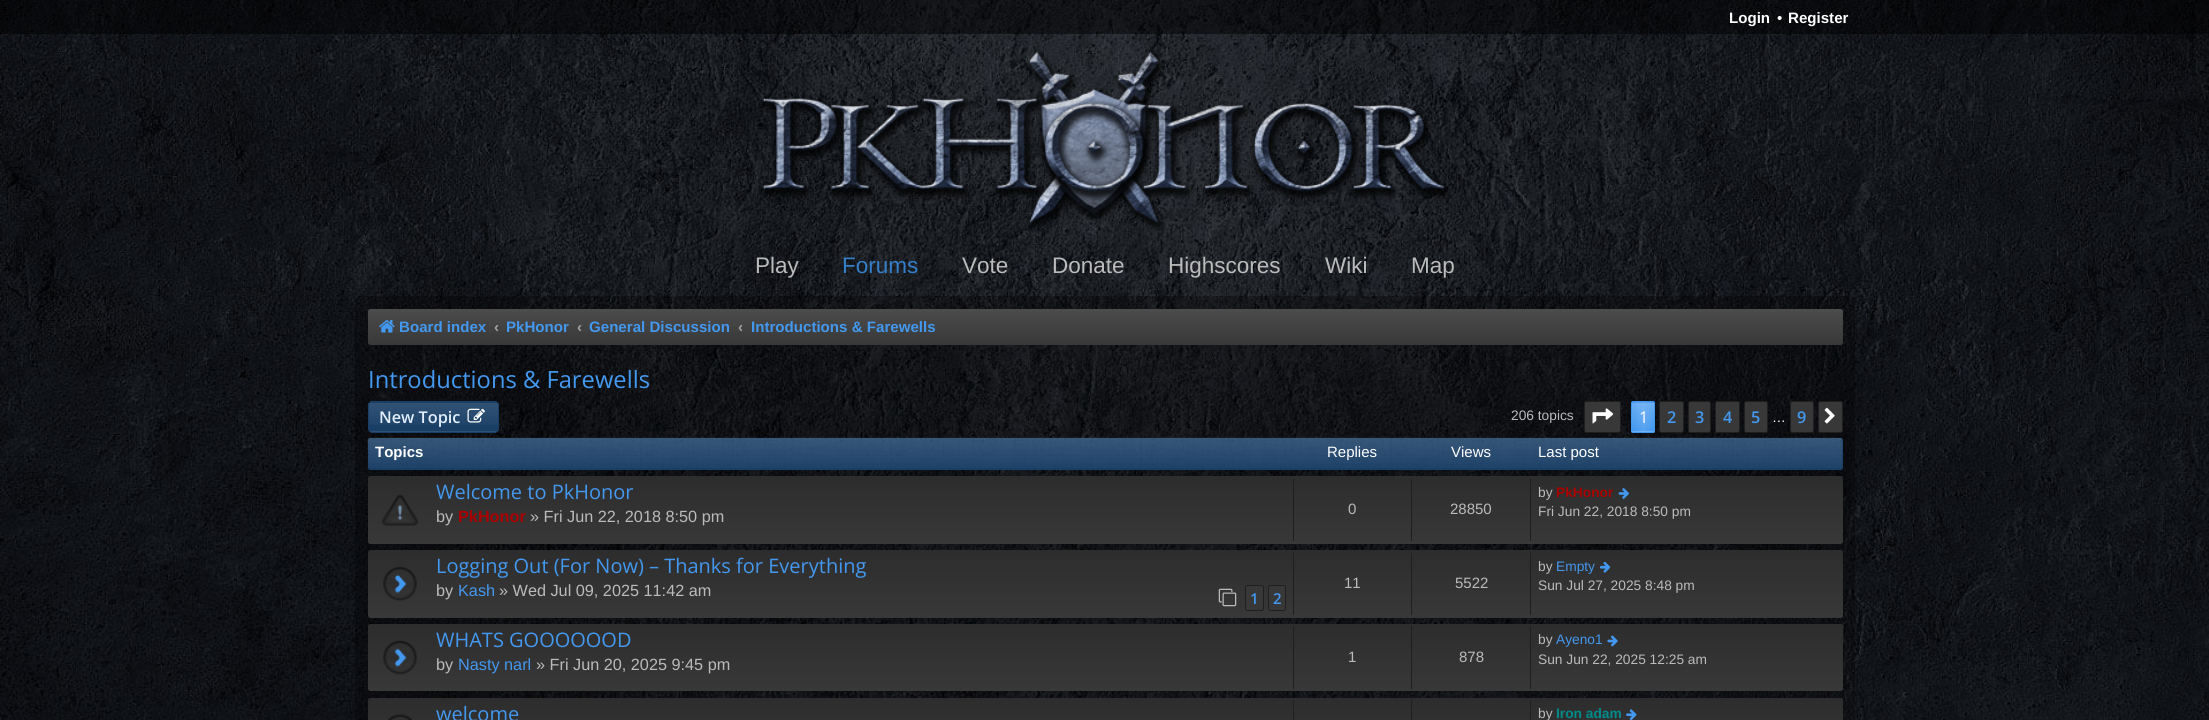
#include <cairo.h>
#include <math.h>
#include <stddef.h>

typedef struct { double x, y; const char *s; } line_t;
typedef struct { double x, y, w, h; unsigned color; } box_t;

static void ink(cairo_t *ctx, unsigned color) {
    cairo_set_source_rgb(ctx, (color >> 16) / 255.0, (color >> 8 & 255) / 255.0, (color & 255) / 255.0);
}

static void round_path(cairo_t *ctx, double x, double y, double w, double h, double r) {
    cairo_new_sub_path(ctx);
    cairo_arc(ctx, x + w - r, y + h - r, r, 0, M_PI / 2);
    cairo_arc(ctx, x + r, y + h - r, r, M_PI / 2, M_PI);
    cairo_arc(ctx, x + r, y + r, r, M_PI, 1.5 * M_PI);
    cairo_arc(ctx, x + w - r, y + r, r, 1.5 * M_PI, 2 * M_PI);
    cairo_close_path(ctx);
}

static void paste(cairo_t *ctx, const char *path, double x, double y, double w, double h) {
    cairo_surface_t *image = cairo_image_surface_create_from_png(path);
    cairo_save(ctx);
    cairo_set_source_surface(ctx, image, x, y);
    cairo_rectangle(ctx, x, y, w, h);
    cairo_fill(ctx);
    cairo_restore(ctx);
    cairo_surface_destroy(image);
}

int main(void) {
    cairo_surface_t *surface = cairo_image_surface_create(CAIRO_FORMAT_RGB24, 2209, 720);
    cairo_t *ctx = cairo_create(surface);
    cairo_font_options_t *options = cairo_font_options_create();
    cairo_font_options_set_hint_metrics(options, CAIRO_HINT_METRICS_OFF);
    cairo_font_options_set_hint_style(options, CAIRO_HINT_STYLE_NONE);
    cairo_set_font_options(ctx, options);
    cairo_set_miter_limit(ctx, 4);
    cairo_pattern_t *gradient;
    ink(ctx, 0xFFFFFF);
    cairo_paint(ctx);
    paste(ctx, "media/1.png", 0, 0, 2209, 720);
    cairo_set_source_rgba(ctx, 0, 0, 0, 0.5);
    cairo_rectangle(ctx, 0, 0, 2209, 34);
    cairo_fill(ctx);
    cairo_select_font_face(ctx, "Liberation Sans", CAIRO_FONT_SLANT_NORMAL, CAIRO_FONT_WEIGHT_BOLD);
    cairo_set_font_size(ctx, 15.1);
    ink(ctx, 0xFFFFFF);
    cairo_move_to(ctx, 1729, 23);
    cairo_show_text(ctx, "Login");
    cairo_select_font_face(ctx, "Liberation Sans", CAIRO_FONT_SLANT_NORMAL, CAIRO_FONT_WEIGHT_NORMAL);
    cairo_move_to(ctx, 1777, 23);
    cairo_show_text(ctx, "•");
    cairo_select_font_face(ctx, "Liberation Sans", CAIRO_FONT_SLANT_NORMAL, CAIRO_FONT_WEIGHT_BOLD);
    cairo_move_to(ctx, 1788, 23);
    cairo_show_text(ctx, "Register");
    paste(ctx, "media/2.png", 760, 51, 692, 181);
    cairo_select_font_face(ctx, "Liberation Sans", CAIRO_FONT_SLANT_NORMAL, CAIRO_FONT_WEIGHT_NORMAL);
    cairo_set_font_size(ctx, 22.5);
    ink(ctx, 0xBBBBBB);
    cairo_move_to(ctx, 755, 273);
    cairo_show_text(ctx, "Play");
    ink(ctx, 0x347FCB);
    cairo_move_to(ctx, 842, 273);
    cairo_show_text(ctx, "Forums");
    ink(ctx, 0xBBBBBB);
    {
        static const line_t items[] = {
            {962, 273, "Vote"},
            {1052, 273, "Donate"},
            {1168, 273, "Highscores"},
            {1325, 273, "Wiki"},
            {1411, 273, "Map"},
        };
        for (size_t i = 0; i < sizeof items / sizeof *items; i++) {
            cairo_move_to(ctx, items[i].x, items[i].y);
            cairo_show_text(ctx, items[i].s);
        }
    }
    cairo_set_source_rgba(ctx, 0, 0, 0, 0.3);
    round_path(ctx, 355, 296, 1500, 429, 5);
    cairo_fill(ctx);
    ink(ctx, 0x383838);
    round_path(ctx, 368, 309, 1475, 36, 2.5);
    cairo_fill(ctx);
    gradient = cairo_pattern_create_linear(1105, 309, 1105, 345);
    cairo_pattern_add_color_stop_rgba(gradient, 0, 1, 1, 1, 0.1);
    cairo_pattern_add_color_stop_rgba(gradient, 1, 1, 1, 1, 0);
    cairo_set_source(ctx, gradient);
    cairo_pattern_destroy(gradient);
    round_path(ctx, 368, 309, 1475, 36, 2.5);
    cairo_fill(ctx);
    paste(ctx, "media/3.png", 379, 320, 16, 13);
    cairo_select_font_face(ctx, "Liberation Sans", CAIRO_FONT_SLANT_NORMAL, CAIRO_FONT_WEIGHT_BOLD);
    cairo_set_font_size(ctx, 15.1);
    ink(ctx, 0x4398EF);
    cairo_move_to(ctx, 399, 332);
    cairo_show_text(ctx, "Board index");
    ink(ctx, 0xA2A2A2);
    cairo_move_to(ctx, 494, 332);
    cairo_show_text(ctx, "‹");
    ink(ctx, 0x4398EF);
    cairo_move_to(ctx, 506, 332);
    cairo_show_text(ctx, "PkHonor");
    ink(ctx, 0xA2A2A2);
    cairo_move_to(ctx, 577, 332);
    cairo_show_text(ctx, "‹");
    ink(ctx, 0x4398EF);
    cairo_move_to(ctx, 589, 332);
    cairo_show_text(ctx, "General Discussion");
    ink(ctx, 0xA2A2A2);
    cairo_move_to(ctx, 738, 332);
    cairo_show_text(ctx, "‹");
    ink(ctx, 0x4398EF);
    cairo_move_to(ctx, 751, 332);
    cairo_show_text(ctx, "Introductions & Farewells");
    cairo_select_font_face(ctx, "Open Sans", CAIRO_FONT_SLANT_NORMAL, CAIRO_FONT_WEIGHT_NORMAL);
    cairo_set_font_size(ctx, 23.75);
    cairo_move_to(ctx, 368, 388);
    cairo_show_text(ctx, "Introductions & Farewells");
    ink(ctx, 0x1A3F66);
    round_path(ctx, 368, 401, 131, 32, 5);
    cairo_fill(ctx);
    gradient = cairo_pattern_create_linear(433, 403, 433, 431);
    cairo_pattern_add_color_stop_rgba(gradient, 0, 1, 1, 1, 0.1);
    cairo_pattern_add_color_stop_rgba(gradient, 1, 1, 1, 1, 0);
    cairo_set_source(ctx, gradient);
    cairo_pattern_destroy(gradient);
    cairo_rectangle(ctx, 368, 403, 131, 22);
    cairo_fill(ctx);
    cairo_save(ctx);
    round_path(ctx, 368, 401, 131, 32, 5);
    cairo_clip(ctx);
    gradient = cairo_pattern_create_linear(433, 431, 433, 460);
    cairo_pattern_add_color_stop_rgba(gradient, 0, 1, 1, 1, 0.1);
    cairo_pattern_add_color_stop_rgba(gradient, 1, 1, 1, 1, 0);
    cairo_set_source(ctx, gradient);
    cairo_pattern_destroy(gradient);
    cairo_rectangle(ctx, 368, 431, 131, 2);
    cairo_fill(ctx);
    cairo_restore(ctx);
    round_path(ctx, 368.5, 401.5, 130, 31, 4.5);
    ink(ctx, 0x1A3F66);
    cairo_set_line_width(ctx, 1);
    cairo_stroke(ctx);
    cairo_select_font_face(ctx, "Open Sans SemiBold", CAIRO_FONT_SLANT_NORMAL, CAIRO_FONT_WEIGHT_NORMAL);
    cairo_set_font_size(ctx, 16.25);
    ink(ctx, 0xE2EFFC);
    cairo_move_to(ctx, 379, 423);
    cairo_show_text(ctx, "New Topic");
    paste(ctx, "media/4.png", 467, 408, 18, 15);
    cairo_select_font_face(ctx, "Liberation Sans", CAIRO_FONT_SLANT_NORMAL, CAIRO_FONT_WEIGHT_NORMAL);
    cairo_set_font_size(ctx, 13.75);
    ink(ctx, 0xBBBBBB);
    cairo_move_to(ctx, 1511, 420);
    cairo_show_text(ctx, "206 topics");
    ink(ctx, 0x383838);
    round_path(ctx, 1584.5, 401.5, 36, 31, 2);
    cairo_fill_preserve(ctx);
    ink(ctx, 0x1F1F1F);
    cairo_stroke(ctx);
    paste(ctx, "media/5.png", 1592, 408, 22, 16);
    ink(ctx, 0x4398EF);
    round_path(ctx, 1631, 401, 24, 32, 2.5);
    cairo_fill(ctx);
    gradient = cairo_pattern_create_linear(1633, 417, 1654, 417);
    cairo_pattern_add_color_stop_rgba(gradient, 0, 1, 1, 1, 0);
    cairo_pattern_add_color_stop_rgba(gradient, 0.5, 1, 1, 1, 0.1);
    cairo_pattern_add_color_stop_rgba(gradient, 1, 1, 1, 1, 0);
    cairo_set_source(ctx, gradient);
    cairo_pattern_destroy(gradient);
    cairo_rectangle(ctx, 1635, 402, 17, 30);
    cairo_fill(ctx);
    gradient = cairo_pattern_create_linear(1643, 403, 1643, 431);
    cairo_pattern_add_color_stop_rgba(gradient, 0, 1, 1, 1, 0.2);
    cairo_pattern_add_color_stop_rgba(gradient, 1, 1, 1, 1, 0);
    cairo_set_source(ctx, gradient);
    cairo_pattern_destroy(gradient);
    cairo_rectangle(ctx, 1631, 403, 24, 25);
    cairo_fill(ctx);
    gradient = cairo_pattern_create_linear(1643, 431, 1643, 460);
    cairo_pattern_add_color_stop_rgba(gradient, 0, 1, 1, 1, 0.2);
    cairo_pattern_add_color_stop_rgba(gradient, 1, 1, 1, 1, 0);
    cairo_set_source(ctx, gradient);
    cairo_pattern_destroy(gradient);
    cairo_rectangle(ctx, 1631, 431, 24, 2);
    cairo_fill(ctx);
    round_path(ctx, 1631.5, 401.5, 23, 31, 2);
    ink(ctx, 0x4398EF);
    cairo_stroke(ctx);
    cairo_select_font_face(ctx, "Open Sans", CAIRO_FONT_SLANT_NORMAL, CAIRO_FONT_WEIGHT_NORMAL);
    cairo_set_font_size(ctx, 16.25);
    ink(ctx, 0xFFFFFF);
    cairo_move_to(ctx, 1639, 423);
    cairo_show_text(ctx, "1");
    ink(ctx, 0x383838);
    round_path(ctx, 1659.5, 401.5, 24, 31, 2);
    cairo_fill_preserve(ctx);
    ink(ctx, 0x1F1F1F);
    cairo_stroke(ctx);
    cairo_select_font_face(ctx, "Open Sans SemiBold", CAIRO_FONT_SLANT_NORMAL, CAIRO_FONT_WEIGHT_NORMAL);
    ink(ctx, 0x4398EF);
    cairo_move_to(ctx, 1667, 423);
    cairo_show_text(ctx, "2");
    ink(ctx, 0x383838);
    round_path(ctx, 1688.5, 401.5, 22, 31, 2);
    cairo_fill_preserve(ctx);
    ink(ctx, 0x1F1F1F);
    cairo_stroke(ctx);
    ink(ctx, 0x4398EF);
    cairo_move_to(ctx, 1695, 423);
    cairo_show_text(ctx, "3");
    ink(ctx, 0x383838);
    round_path(ctx, 1715.5, 401.5, 24, 31, 2);
    cairo_fill_preserve(ctx);
    ink(ctx, 0x1F1F1F);
    cairo_stroke(ctx);
    ink(ctx, 0x4398EF);
    cairo_move_to(ctx, 1723, 423);
    cairo_show_text(ctx, "4");
    ink(ctx, 0x383838);
    round_path(ctx, 1744.5, 401.5, 23, 31, 2);
    cairo_fill_preserve(ctx);
    ink(ctx, 0x1F1F1F);
    cairo_stroke(ctx);
    ink(ctx, 0x4398EF);
    cairo_move_to(ctx, 1751, 423);
    cairo_show_text(ctx, "5");
    cairo_select_font_face(ctx, "Liberation Sans", CAIRO_FONT_SLANT_NORMAL, CAIRO_FONT_WEIGHT_NORMAL);
    cairo_set_font_size(ctx, 13.75);
    ink(ctx, 0xFFFFFF);
    cairo_move_to(ctx, 1772, 422);
    cairo_show_text(ctx, "…");
    ink(ctx, 0x383838);
    round_path(ctx, 1790.5, 401.5, 23, 31, 2);
    cairo_fill_preserve(ctx);
    ink(ctx, 0x1F1F1F);
    cairo_stroke(ctx);
    cairo_select_font_face(ctx, "Open Sans SemiBold", CAIRO_FONT_SLANT_NORMAL, CAIRO_FONT_WEIGHT_NORMAL);
    cairo_set_font_size(ctx, 16.25);
    ink(ctx, 0x4398EF);
    cairo_move_to(ctx, 1797, 423);
    cairo_show_text(ctx, "9");
    ink(ctx, 0x383838);
    round_path(ctx, 1818.5, 401.5, 24, 31, 2);
    cairo_fill_preserve(ctx);
    ink(ctx, 0x1F1F1F);
    cairo_stroke(ctx);
    paste(ctx, "media/6.png", 1824, 407, 11, 17);
    ink(ctx, 0x1A3F66);
    round_path(ctx, 368, 438, 1475, 32, 2.5);
    cairo_fill(ctx);
    paste(ctx, "media/7.png", 367, 437, 1476, 31);
    cairo_select_font_face(ctx, "Liberation Sans", CAIRO_FONT_SLANT_NORMAL, CAIRO_FONT_WEIGHT_BOLD);
    cairo_set_font_size(ctx, 15);
    ink(ctx, 0xFFFFFF);
    cairo_move_to(ctx, 375, 457);
    cairo_show_text(ctx, "Topics");
    cairo_select_font_face(ctx, "Liberation Sans", CAIRO_FONT_SLANT_NORMAL, CAIRO_FONT_WEIGHT_NORMAL);
    {
        static const line_t items[] = {
            {1327, 457, "Replies"},
            {1451, 457, "Views"},
            {1538, 457, "Last post"},
        };
        for (size_t i = 0; i < sizeof items / sizeof *items; i++) {
            cairo_move_to(ctx, items[i].x, items[i].y);
            cairo_show_text(ctx, items[i].s);
        }
    }
    ink(ctx, 0x383838);
    round_path(ctx, 368, 476, 1475, 68, 2.5);
    cairo_fill(ctx);
    gradient = cairo_pattern_create_linear(1105, 476, 1105, 544);
    cairo_pattern_add_color_stop_rgba(gradient, 0, 0, 0, 0, 0.2);
    cairo_pattern_add_color_stop_rgba(gradient, 1, 0, 0, 0, 0);
    cairo_set_source(ctx, gradient);
    cairo_pattern_destroy(gradient);
    round_path(ctx, 368, 476, 1475, 68, 2.5);
    cairo_fill(ctx);
    paste(ctx, "media/8.png", 382, 494, 36, 32);
    cairo_select_font_face(ctx, "Open Sans", CAIRO_FONT_SLANT_NORMAL, CAIRO_FONT_WEIGHT_NORMAL);
    cairo_set_font_size(ctx, 20);
    ink(ctx, 0x4398EF);
    cairo_move_to(ctx, 436, 499);
    cairo_show_text(ctx, "Welcome to PkHonor");
    cairo_select_font_face(ctx, "Liberation Sans", CAIRO_FONT_SLANT_NORMAL, CAIRO_FONT_WEIGHT_NORMAL);
    cairo_set_font_size(ctx, 16.25);
    ink(ctx, 0xBBBBBB);
    cairo_move_to(ctx, 436, 522);
    cairo_show_text(ctx, "by");
    cairo_select_font_face(ctx, "Liberation Sans", CAIRO_FONT_SLANT_NORMAL, CAIRO_FONT_WEIGHT_BOLD);
    ink(ctx, 0xAA0000);
    cairo_move_to(ctx, 458, 522);
    cairo_show_text(ctx, "PkHonor");
    cairo_select_font_face(ctx, "Liberation Sans", CAIRO_FONT_SLANT_NORMAL, CAIRO_FONT_WEIGHT_NORMAL);
    ink(ctx, 0xBBBBBB);
    cairo_move_to(ctx, 530, 522);
    cairo_show_text(ctx, "» Fri Jun 22, 2018 8:50 pm");
    ink(ctx, 0x1F1F1F);
    cairo_rectangle(ctx, 1293, 479, 1, 62);
    cairo_fill(ctx);
    cairo_set_font_size(ctx, 15);
    ink(ctx, 0xBBBBBB);
    cairo_move_to(ctx, 1348, 514);
    cairo_show_text(ctx, "0");
    ink(ctx, 0x1F1F1F);
    cairo_rectangle(ctx, 1411, 479, 1, 62);
    cairo_fill(ctx);
    ink(ctx, 0xBBBBBB);
    cairo_move_to(ctx, 1450, 514);
    cairo_show_text(ctx, "28850");
    ink(ctx, 0x1F1F1F);
    cairo_rectangle(ctx, 1530, 479, 1, 62);
    cairo_fill(ctx);
    cairo_set_font_size(ctx, 13.75);
    ink(ctx, 0xBBBBBB);
    cairo_move_to(ctx, 1538, 497);
    cairo_show_text(ctx, "by");
    cairo_select_font_face(ctx, "Liberation Sans", CAIRO_FONT_SLANT_NORMAL, CAIRO_FONT_WEIGHT_BOLD);
    ink(ctx, 0xAA0000);
    cairo_move_to(ctx, 1556, 497);
    cairo_show_text(ctx, "PkHonor");
    paste(ctx, "media/9.png", 1618, 488, 11, 11);
    cairo_select_font_face(ctx, "Liberation Sans", CAIRO_FONT_SLANT_NORMAL, CAIRO_FONT_WEIGHT_NORMAL);
    ink(ctx, 0xBBBBBB);
    cairo_move_to(ctx, 1538, 516);
    cairo_show_text(ctx, "Fri Jun 22, 2018 8:50 pm");
    ink(ctx, 0x383838);
    round_path(ctx, 368, 550, 1475, 68, 2.5);
    cairo_fill(ctx);
    gradient = cairo_pattern_create_linear(1105, 550, 1105, 618);
    cairo_pattern_add_color_stop_rgba(gradient, 0, 0, 0, 0, 0.2);
    cairo_pattern_add_color_stop_rgba(gradient, 1, 0, 0, 0, 0);
    cairo_set_source(ctx, gradient);
    cairo_pattern_destroy(gradient);
    round_path(ctx, 368, 550, 1475, 68, 2.5);
    cairo_fill(ctx);
    paste(ctx, "media/10.png", 383, 567, 34, 34);
    cairo_select_font_face(ctx, "Open Sans", CAIRO_FONT_SLANT_NORMAL, CAIRO_FONT_WEIGHT_NORMAL);
    cairo_set_font_size(ctx, 20);
    ink(ctx, 0x4398EF);
    cairo_move_to(ctx, 436, 573);
    cairo_show_text(ctx, "Logging Out (For Now) – Thanks for Everything");
    cairo_select_font_face(ctx, "Liberation Sans", CAIRO_FONT_SLANT_NORMAL, CAIRO_FONT_WEIGHT_NORMAL);
    cairo_set_font_size(ctx, 16.25);
    ink(ctx, 0xBBBBBB);
    cairo_move_to(ctx, 436, 596);
    cairo_show_text(ctx, "by");
    ink(ctx, 0x4398EF);
    cairo_move_to(ctx, 458, 596);
    cairo_show_text(ctx, "Kash");
    ink(ctx, 0xBBBBBB);
    cairo_move_to(ctx, 499, 596);
    cairo_show_text(ctx, "» Wed Jul 09, 2025 11:42 am");
    paste(ctx, "media/11.png", 1218, 588, 19, 19);
    ink(ctx, 0x383838);
    round_path(ctx, 1245.5, 585.5, 18, 25, 2);
    cairo_fill_preserve(ctx);
    ink(ctx, 0x1F1F1F);
    cairo_stroke(ctx);
    cairo_select_font_face(ctx, "Open Sans SemiBold", CAIRO_FONT_SLANT_NORMAL, CAIRO_FONT_WEIGHT_NORMAL);
    cairo_set_font_size(ctx, 15);
    ink(ctx, 0x4398EF);
    cairo_move_to(ctx, 1250, 604);
    cairo_show_text(ctx, "1");
    ink(ctx, 0x383838);
    round_path(ctx, 1268.5, 585.5, 17, 25, 2);
    cairo_fill_preserve(ctx);
    ink(ctx, 0x1F1F1F);
    cairo_stroke(ctx);
    ink(ctx, 0x4398EF);
    cairo_move_to(ctx, 1273, 604);
    cairo_show_text(ctx, "2");
    ink(ctx, 0x1F1F1F);
    cairo_rectangle(ctx, 1293, 553, 1, 62);
    cairo_fill(ctx);
    cairo_select_font_face(ctx, "Liberation Sans", CAIRO_FONT_SLANT_NORMAL, CAIRO_FONT_WEIGHT_NORMAL);
    ink(ctx, 0xBBBBBB);
    cairo_move_to(ctx, 1344, 588);
    cairo_show_text(ctx, "11");
    ink(ctx, 0x1F1F1F);
    cairo_rectangle(ctx, 1411, 553, 1, 62);
    cairo_fill(ctx);
    ink(ctx, 0xBBBBBB);
    cairo_move_to(ctx, 1455, 588);
    cairo_show_text(ctx, "5522");
    ink(ctx, 0x1F1F1F);
    cairo_rectangle(ctx, 1530, 553, 1, 62);
    cairo_fill(ctx);
    cairo_set_font_size(ctx, 13.75);
    ink(ctx, 0xBBBBBB);
    cairo_move_to(ctx, 1538, 571);
    cairo_show_text(ctx, "by");
    ink(ctx, 0x4398EF);
    cairo_move_to(ctx, 1556, 571);
    cairo_show_text(ctx, "Empty");
    paste(ctx, "media/12.png", 1600, 561, 11, 12);
    ink(ctx, 0xBBBBBB);
    cairo_move_to(ctx, 1538, 590);
    cairo_show_text(ctx, "Sun Jul 27, 2025 8:48 pm");
    ink(ctx, 0x383838);
    round_path(ctx, 368, 624, 1475, 67, 2.5);
    cairo_fill(ctx);
    gradient = cairo_pattern_create_linear(1105, 624, 1105, 691);
    cairo_pattern_add_color_stop_rgba(gradient, 0, 0, 0, 0, 0.2);
    cairo_pattern_add_color_stop_rgba(gradient, 1, 0, 0, 0, 0);
    cairo_set_source(ctx, gradient);
    cairo_pattern_destroy(gradient);
    round_path(ctx, 368, 624, 1475, 67, 2.5);
    cairo_fill(ctx);
    paste(ctx, "media/13.png", 383, 640, 34, 35);
    cairo_select_font_face(ctx, "Open Sans", CAIRO_FONT_SLANT_NORMAL, CAIRO_FONT_WEIGHT_NORMAL);
    cairo_set_font_size(ctx, 20);
    ink(ctx, 0x4398EF);
    cairo_move_to(ctx, 436, 647);
    cairo_show_text(ctx, "WHATS GOOOOOOD");
    cairo_select_font_face(ctx, "Liberation Sans", CAIRO_FONT_SLANT_NORMAL, CAIRO_FONT_WEIGHT_NORMAL);
    cairo_set_font_size(ctx, 16.25);
    ink(ctx, 0xBBBBBB);
    cairo_move_to(ctx, 436, 670);
    cairo_show_text(ctx, "by");
    ink(ctx, 0x4398EF);
    cairo_move_to(ctx, 458, 670);
    cairo_show_text(ctx, "Nasty narl");
    ink(ctx, 0xBBBBBB);
    cairo_move_to(ctx, 536, 670);
    cairo_show_text(ctx, "» Fri Jun 20, 2025 9:45 pm");
    ink(ctx, 0x1F1F1F);
    cairo_rectangle(ctx, 1293, 626, 1, 63);
    cairo_fill(ctx);
    cairo_set_font_size(ctx, 15);
    ink(ctx, 0xBBBBBB);
    cairo_move_to(ctx, 1348, 662);
    cairo_show_text(ctx, "1");
    ink(ctx, 0x1F1F1F);
    cairo_rectangle(ctx, 1411, 626, 1, 63);
    cairo_fill(ctx);
    ink(ctx, 0xBBBBBB);
    cairo_move_to(ctx, 1459, 662);
    cairo_show_text(ctx, "878");
    ink(ctx, 0x1F1F1F);
    cairo_rectangle(ctx, 1530, 626, 1, 63);
    cairo_fill(ctx);
    cairo_set_font_size(ctx, 13.75);
    ink(ctx, 0xBBBBBB);
    cairo_move_to(ctx, 1538, 644);
    cairo_show_text(ctx, "by");
    ink(ctx, 0x4398EF);
    cairo_move_to(ctx, 1556, 644);
    cairo_show_text(ctx, "Ayeno1");
    paste(ctx, "media/14.png", 1607, 635, 11, 12);
    ink(ctx, 0xBBBBBB);
    cairo_move_to(ctx, 1538, 664);
    cairo_show_text(ctx, "Sun Jun 22, 2025 12:25 am");
    ink(ctx, 0x383838);
    round_path(ctx, 368, 698, 1475, 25, 2.5);
    cairo_fill(ctx);
    gradient = cairo_pattern_create_linear(1105, 697, 1105, 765);
    cairo_pattern_add_color_stop_rgba(gradient, 0, 0, 0, 0, 0.2);
    cairo_pattern_add_color_stop_rgba(gradient, 1, 0, 0, 0, 0);
    cairo_set_source(ctx, gradient);
    cairo_pattern_destroy(gradient);
    round_path(ctx, 368, 698, 1475, 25, 2.5);
    cairo_fill(ctx);
    paste(ctx, "media/15.png", 388, 714, 24, 6);
    cairo_select_font_face(ctx, "Open Sans", CAIRO_FONT_SLANT_NORMAL, CAIRO_FONT_WEIGHT_NORMAL);
    cairo_set_font_size(ctx, 20);
    ink(ctx, 0x4398EF);
    cairo_move_to(ctx, 436, 721);
    cairo_show_text(ctx, "welcome");
    {
        static const box_t items[] = {
            {1293, 700, 1, 20, 0x1F1F1F},
            {1411, 700, 1, 20, 0x1F1F1F},
            {1530, 700, 1, 20, 0x1F1F1F},
        };
        for (size_t i = 0; i < sizeof items / sizeof *items; i++) {
            ink(ctx, items[i].color);
            cairo_rectangle(ctx, items[i].x, items[i].y, items[i].w, items[i].h);
            cairo_fill(ctx);
        }
    }
    cairo_select_font_face(ctx, "Liberation Sans", CAIRO_FONT_SLANT_NORMAL, CAIRO_FONT_WEIGHT_NORMAL);
    cairo_set_font_size(ctx, 13.75);
    ink(ctx, 0xBBBBBB);
    cairo_move_to(ctx, 1538, 718);
    cairo_show_text(ctx, "by");
    cairo_select_font_face(ctx, "Liberation Sans", CAIRO_FONT_SLANT_NORMAL, CAIRO_FONT_WEIGHT_BOLD);
    ink(ctx, 0x008B8B);
    cairo_move_to(ctx, 1556, 718);
    cairo_show_text(ctx, "Iron adam");
    paste(ctx, "media/16.png", 1626, 709, 11, 11);
    cairo_surface_write_to_png(surface, "image.png");
    cairo_font_options_destroy(options);
    cairo_destroy(ctx);
    cairo_surface_destroy(surface);
    return 0;
}
